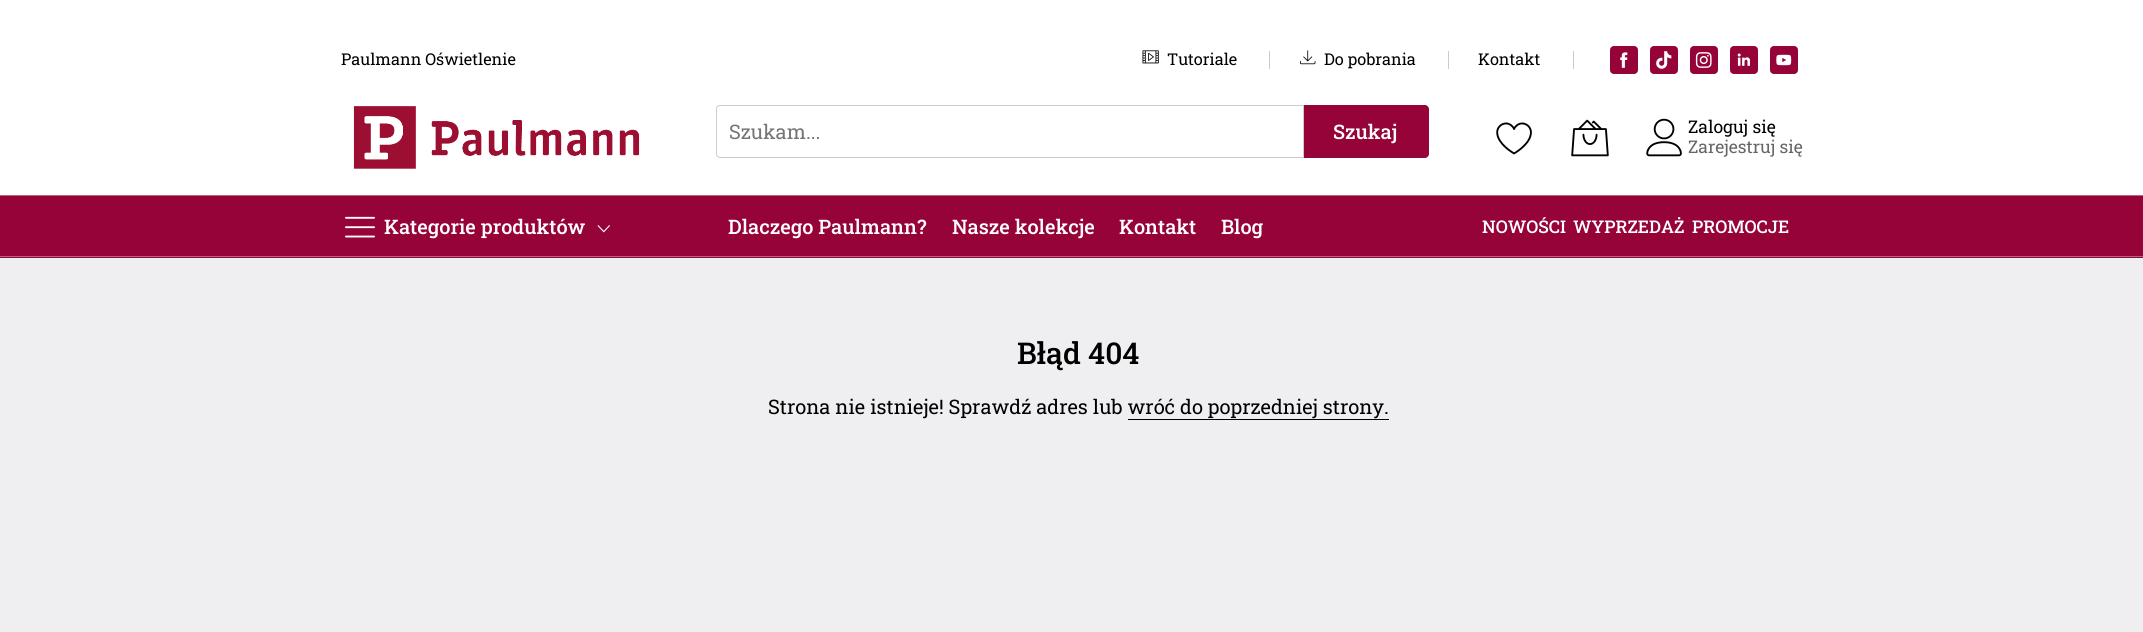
#include <cairo.h>
#include <math.h>
#include <stddef.h>

typedef struct { double x, y; const char *s; } line_t;

static void ink(cairo_t *ctx, unsigned color) {
    cairo_set_source_rgb(ctx, (color >> 16) / 255.0, (color >> 8 & 255) / 255.0, (color & 255) / 255.0);
}

static void round_path(cairo_t *ctx, double x, double y, double w, double h, double r) {
    cairo_new_sub_path(ctx);
    cairo_arc(ctx, x + w - r, y + h - r, r, 0, M_PI / 2);
    cairo_arc(ctx, x + r, y + h - r, r, M_PI / 2, M_PI);
    cairo_arc(ctx, x + r, y + r, r, M_PI, 1.5 * M_PI);
    cairo_arc(ctx, x + w - r, y + r, r, 1.5 * M_PI, 2 * M_PI);
    cairo_close_path(ctx);
}

static void paste(cairo_t *ctx, const char *path, double x, double y, double w, double h) {
    cairo_surface_t *image = cairo_image_surface_create_from_png(path);
    cairo_save(ctx);
    cairo_set_source_surface(ctx, image, x, y);
    cairo_rectangle(ctx, x, y, w, h);
    cairo_fill(ctx);
    cairo_restore(ctx);
    cairo_surface_destroy(image);
}

int main(void) {
    cairo_surface_t *surface = cairo_image_surface_create(CAIRO_FORMAT_RGB24, 2143, 632);
    cairo_t *ctx = cairo_create(surface);
    cairo_font_options_t *options = cairo_font_options_create();
    cairo_font_options_set_hint_metrics(options, CAIRO_HINT_METRICS_OFF);
    cairo_font_options_set_hint_style(options, CAIRO_HINT_STYLE_NONE);
    cairo_set_font_options(ctx, options);
    cairo_set_miter_limit(ctx, 4);
    ink(ctx, 0xFFFFFF);
    cairo_paint(ctx);
    cairo_select_font_face(ctx, "Roboto Slab", CAIRO_FONT_SLANT_NORMAL, CAIRO_FONT_WEIGHT_NORMAL);
    cairo_set_font_size(ctx, 16.25);
    ink(ctx, 0x000000);
    cairo_move_to(ctx, 341, 65);
    cairo_show_text(ctx, "Paulmann Oświetlenie");
    paste(ctx, "media/1.png", 1142, 50, 17, 14);
    cairo_move_to(ctx, 1167, 65);
    cairo_show_text(ctx, "Tutoriale");
    ink(ctx, 0xCCCCCC);
    cairo_rectangle(ctx, 1269, 51, 1, 18);
    cairo_fill(ctx);
    paste(ctx, "media/2.png", 1300, 50, 16, 15);
    ink(ctx, 0x000000);
    cairo_move_to(ctx, 1324, 65);
    cairo_show_text(ctx, "Do pobrania");
    ink(ctx, 0xCCCCCC);
    cairo_rectangle(ctx, 1448, 51, 1, 18);
    cairo_fill(ctx);
    ink(ctx, 0x000000);
    cairo_move_to(ctx, 1478, 65);
    cairo_show_text(ctx, "Kontakt");
    ink(ctx, 0xCCCCCC);
    cairo_rectangle(ctx, 1573, 51, 1, 18);
    cairo_fill(ctx);
    ink(ctx, 0x950338);
    round_path(ctx, 1610, 46, 28, 28, 4);
    cairo_fill(ctx);
    paste(ctx, "media/3.png", 1620, 52, 8, 16);
    round_path(ctx, 1650, 46, 28, 28, 4);
    cairo_fill(ctx);
    paste(ctx, "media/4.png", 1656, 51, 16, 18);
    round_path(ctx, 1690, 46, 28, 28, 4);
    cairo_fill(ctx);
    paste(ctx, "media/5.png", 1695, 52, 17, 16);
    round_path(ctx, 1730, 46, 28, 28, 4);
    cairo_fill(ctx);
    paste(ctx, "media/6.png", 1737, 53, 13, 13);
    round_path(ctx, 1770, 46, 28, 28, 4);
    cairo_fill(ctx);
    paste(ctx, "media/7.png", 1776, 54, 16, 12);
    cairo_new_path(ctx);
    cairo_move_to(ctx, 720, 105.5);
    cairo_line_to(ctx, 1303.5, 105.5);
    cairo_line_to(ctx, 1303.5, 157.5);
    cairo_line_to(ctx, 720, 157.5);
    cairo_curve_to(ctx, 718, 157.5, 716.5, 156, 716.5, 154);
    cairo_line_to(ctx, 716.5, 109);
    cairo_curve_to(ctx, 716.5, 107, 718, 105.5, 720, 105.5);
    cairo_close_path(ctx);
    ink(ctx, 0xCCCCCC);
    cairo_set_line_width(ctx, 1);
    cairo_stroke(ctx);
    cairo_set_font_size(ctx, 20);
    ink(ctx, 0x757575);
    cairo_move_to(ctx, 729, 139);
    cairo_show_text(ctx, "Szukam...");
    ink(ctx, 0x950338);
    cairo_new_path(ctx);
    cairo_move_to(ctx, 1304, 105);
    cairo_line_to(ctx, 1425, 105);
    cairo_curve_to(ctx, 1427, 105, 1429, 107, 1429, 109);
    cairo_line_to(ctx, 1429, 154);
    cairo_curve_to(ctx, 1429, 156, 1427, 158, 1425, 158);
    cairo_line_to(ctx, 1304, 158);
    cairo_close_path(ctx);
    cairo_fill(ctx);
    cairo_select_font_face(ctx, "Roboto Slab Medium", CAIRO_FONT_SLANT_NORMAL, CAIRO_FONT_WEIGHT_NORMAL);
    ink(ctx, 0xFFFFFF);
    cairo_move_to(ctx, 1333, 139);
    cairo_show_text(ctx, "Szukaj");
    paste(ctx, "media/8.png", 1496, 122, 36, 33);
    paste(ctx, "media/9.png", 1571, 119, 38, 38);
    paste(ctx, "media/10.png", 1646, 118, 36, 39);
    cairo_select_font_face(ctx, "Roboto Slab", CAIRO_FONT_SLANT_NORMAL, CAIRO_FONT_WEIGHT_NORMAL);
    cairo_set_font_size(ctx, 17.5);
    ink(ctx, 0x000000);
    cairo_move_to(ctx, 1688, 133);
    cairo_show_text(ctx, "Zaloguj się");
    ink(ctx, 0x666666);
    cairo_move_to(ctx, 1688, 153);
    cairo_show_text(ctx, "Zarejestruj się");
    paste(ctx, "media/11.png", 353, 106, 287, 63);
    ink(ctx, 0x950338);
    cairo_rectangle(ctx, 0, 196, 2143, 62);
    cairo_fill(ctx);
    paste(ctx, "media/12.png", 345, 216, 30, 22);
    cairo_select_font_face(ctx, "Roboto Slab Medium", CAIRO_FONT_SLANT_NORMAL, CAIRO_FONT_WEIGHT_NORMAL);
    cairo_set_font_size(ctx, 20);
    ink(ctx, 0xFFFFFF);
    cairo_move_to(ctx, 384, 234);
    cairo_show_text(ctx, "Kategorie produktów");
    paste(ctx, "media/13.png", 597, 225, 13, 8);
    ink(ctx, 0xB16882);
    cairo_rectangle(ctx, 0, 195, 2143, 1);
    cairo_fill(ctx);
    cairo_rectangle(ctx, 0, 256, 2143, 1);
    cairo_fill(ctx);
    ink(ctx, 0xFFFFFF);
    {
        static const line_t items[] = {
            {728, 234, "Dlaczego Paulmann?"},
            {952, 234, "Nasze kolekcje"},
            {1119, 234, "Kontakt"},
            {1221, 234, "Blog"},
        };
        for (size_t i = 0; i < sizeof items / sizeof *items; i++) {
            cairo_move_to(ctx, items[i].x, items[i].y);
            cairo_show_text(ctx, items[i].s);
        }
    }
    cairo_set_font_size(ctx, 17.5);
    {
        static const line_t items[] = {
            {1482, 233, "NOWOŚCI"},
            {1573, 233, "WYPRZEDAŻ"},
            {1692, 233, "PROMOCJE"},
        };
        for (size_t i = 0; i < sizeof items / sizeof *items; i++) {
            cairo_move_to(ctx, items[i].x, items[i].y);
            cairo_show_text(ctx, items[i].s);
        }
    }
    ink(ctx, 0xEFEEF0);
    cairo_rectangle(ctx, 0, 258, 2143, 374);
    cairo_fill(ctx);
    cairo_set_font_size(ctx, 30);
    ink(ctx, 0x000000);
    cairo_move_to(ctx, 1017, 364);
    cairo_show_text(ctx, "Błąd 404");
    cairo_select_font_face(ctx, "Roboto Slab", CAIRO_FONT_SLANT_NORMAL, CAIRO_FONT_WEIGHT_NORMAL);
    cairo_set_font_size(ctx, 20);
    cairo_move_to(ctx, 768, 414);
    cairo_show_text(ctx, "Strona nie istnieje! Sprawdź adres lub wróć do poprzedniej strony.");
    cairo_rectangle(ctx, 1128, 419, 261, 1);
    cairo_fill(ctx);
    cairo_surface_write_to_png(surface, "image.png");
    cairo_font_options_destroy(options);
    cairo_destroy(ctx);
    cairo_surface_destroy(surface);
    return 0;
}
